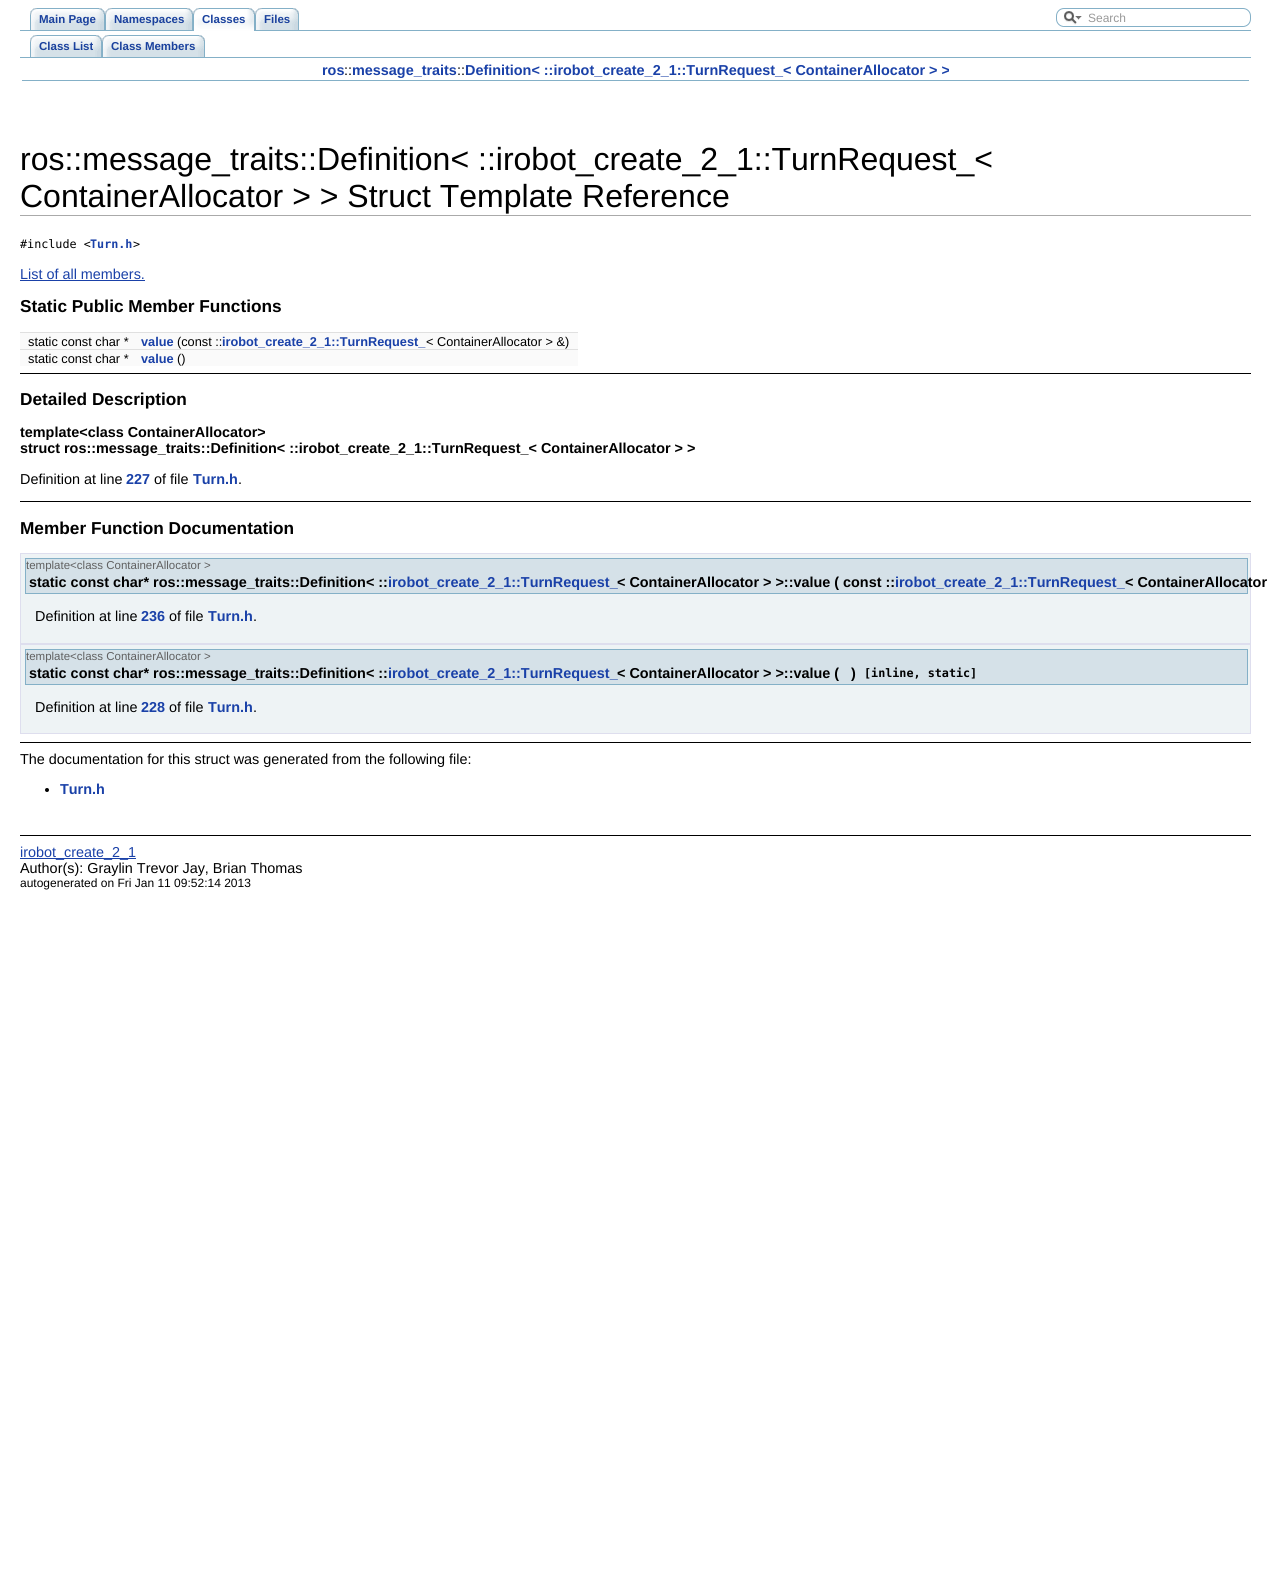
#include <cairo.h>
#include <math.h>
#include <stddef.h>


static void ink(cairo_t *ctx, unsigned color) {
    cairo_set_source_rgb(ctx, (color >> 16) / 255.0, (color >> 8 & 255) / 255.0, (color & 255) / 255.0);
}

static void round_path(cairo_t *ctx, double x, double y, double w, double h, double r) {
    cairo_new_sub_path(ctx);
    cairo_arc(ctx, x + w - r, y + h - r, r, 0, M_PI / 2);
    cairo_arc(ctx, x + r, y + h - r, r, M_PI / 2, M_PI);
    cairo_arc(ctx, x + r, y + r, r, M_PI, 1.5 * M_PI);
    cairo_arc(ctx, x + w - r, y + r, r, 1.5 * M_PI, 2 * M_PI);
    cairo_close_path(ctx);
}

static void paste(cairo_t *ctx, const char *path, double x, double y, double w, double h) {
    cairo_surface_t *image = cairo_image_surface_create_from_png(path);
    cairo_save(ctx);
    cairo_set_source_surface(ctx, image, x, y);
    cairo_rectangle(ctx, x, y, w, h);
    cairo_fill(ctx);
    cairo_restore(ctx);
    cairo_surface_destroy(image);
}

int main(void) {
    cairo_surface_t *surface = cairo_image_surface_create(CAIRO_FORMAT_RGB24, 1271, 1582);
    cairo_t *ctx = cairo_create(surface);
    cairo_font_options_t *options = cairo_font_options_create();
    cairo_font_options_set_hint_metrics(options, CAIRO_HINT_METRICS_OFF);
    cairo_font_options_set_hint_style(options, CAIRO_HINT_STYLE_NONE);
    cairo_set_font_options(ctx, options);
    cairo_set_miter_limit(ctx, 4);
    ink(ctx, 0xFFFFFF);
    cairo_paint(ctx);
    ink(ctx, 0x84B0C7);
    cairo_rectangle(ctx, 20, 30, 1231, 1);
    cairo_fill(ctx);
    paste(ctx, "media/1.png", 39, 8, 66, 22);
    paste(ctx, "media/2.png", 30, 8, 9, 22);
    cairo_select_font_face(ctx, "Liberation Sans", CAIRO_FONT_SLANT_NORMAL, CAIRO_FONT_WEIGHT_BOLD);
    cairo_set_font_size(ctx, 11.5);
    ink(ctx, 0x1A419D);
    cairo_move_to(ctx, 39, 23);
    cairo_show_text(ctx, "Main Page");
    paste(ctx, "media/3.png", 114, 8, 79, 22);
    paste(ctx, "media/2.png", 105, 8, 9, 22);
    cairo_move_to(ctx, 114, 23);
    cairo_show_text(ctx, "Namespaces");
    paste(ctx, "media/4.png", 200, 8, 55, 23);
    paste(ctx, "media/5.png", 193, 8, 7, 23);
    cairo_move_to(ctx, 202, 23);
    cairo_show_text(ctx, "Classes");
    paste(ctx, "media/6.png", 264, 8, 35, 22);
    paste(ctx, "media/2.png", 255, 8, 9, 22);
    cairo_move_to(ctx, 264, 23);
    cairo_show_text(ctx, "Files");
    round_path(ctx, 1056.5, 8.5, 194, 18, 7.5);
    ink(ctx, 0x84B0C7);
    cairo_set_line_width(ctx, 1);
    cairo_stroke(ctx);
    paste(ctx, "media/7.png", 1063, 11, 19, 15);
    ink(ctx, 0xFFFFFF);
    cairo_rectangle(ctx, 1243, 25, 1, 1);
    cairo_fill(ctx);
    cairo_select_font_face(ctx, "Liberation Sans", CAIRO_FONT_SLANT_NORMAL, CAIRO_FONT_WEIGHT_NORMAL);
    cairo_set_font_size(ctx, 12);
    ink(ctx, 0x999999);
    cairo_move_to(ctx, 1088, 22);
    cairo_show_text(ctx, "Search");
    ink(ctx, 0x84B0C7);
    cairo_rectangle(ctx, 20, 57, 1231, 1);
    cairo_fill(ctx);
    paste(ctx, "media/8.png", 39, 35, 63, 22);
    paste(ctx, "media/2.png", 30, 35, 9, 22);
    cairo_select_font_face(ctx, "Liberation Sans", CAIRO_FONT_SLANT_NORMAL, CAIRO_FONT_WEIGHT_BOLD);
    cairo_set_font_size(ctx, 11.5);
    ink(ctx, 0x1A419D);
    cairo_move_to(ctx, 39, 50);
    cairo_show_text(ctx, "Class List");
    paste(ctx, "media/9.png", 111, 35, 94, 22);
    paste(ctx, "media/2.png", 102, 35, 9, 22);
    cairo_move_to(ctx, 111, 50);
    cairo_show_text(ctx, "Class Members");
    ink(ctx, 0x84B0C7);
    cairo_rectangle(ctx, 22, 80, 1227, 1);
    cairo_fill(ctx);
    cairo_set_font_size(ctx, 14.4);
    ink(ctx, 0x1A41A8);
    cairo_move_to(ctx, 322, 75);
    cairo_show_text(ctx, "ros");
    cairo_select_font_face(ctx, "Liberation Sans", CAIRO_FONT_SLANT_NORMAL, CAIRO_FONT_WEIGHT_NORMAL);
    ink(ctx, 0x000000);
    cairo_move_to(ctx, 344, 75);
    cairo_show_text(ctx, "::");
    cairo_select_font_face(ctx, "Liberation Sans", CAIRO_FONT_SLANT_NORMAL, CAIRO_FONT_WEIGHT_BOLD);
    ink(ctx, 0x1A41A8);
    cairo_move_to(ctx, 352, 75);
    cairo_show_text(ctx, "message_traits");
    cairo_select_font_face(ctx, "Liberation Sans", CAIRO_FONT_SLANT_NORMAL, CAIRO_FONT_WEIGHT_NORMAL);
    ink(ctx, 0x000000);
    cairo_move_to(ctx, 457, 75);
    cairo_show_text(ctx, "::");
    cairo_select_font_face(ctx, "Liberation Sans", CAIRO_FONT_SLANT_NORMAL, CAIRO_FONT_WEIGHT_BOLD);
    ink(ctx, 0x1A41A8);
    cairo_move_to(ctx, 465, 75);
    cairo_show_text(ctx, "Definition< ::irobot_create_2_1::TurnRequest_< ContainerAllocator > >");
    ink(ctx, 0xAAAAAA);
    cairo_rectangle(ctx, 20, 215, 1231, 1);
    cairo_fill(ctx);
    cairo_select_font_face(ctx, "Liberation Sans", CAIRO_FONT_SLANT_NORMAL, CAIRO_FONT_WEIGHT_NORMAL);
    cairo_set_font_size(ctx, 32);
    ink(ctx, 0x000000);
    cairo_move_to(ctx, 20, 170);
    cairo_show_text(ctx, "ros::message_traits::Definition< ::irobot_create_2_1::TurnRequest_<");
    cairo_move_to(ctx, 20, 207);
    cairo_show_text(ctx, "ContainerAllocator > > Struct Template Reference");
    cairo_select_font_face(ctx, "DejaVu Sans Mono", CAIRO_FONT_SLANT_NORMAL, CAIRO_FONT_WEIGHT_NORMAL);
    cairo_set_font_size(ctx, 11.75);
    cairo_move_to(ctx, 20, 248);
    cairo_show_text(ctx, "#include <");
    cairo_select_font_face(ctx, "DejaVu Sans Mono", CAIRO_FONT_SLANT_NORMAL, CAIRO_FONT_WEIGHT_BOLD);
    ink(ctx, 0x1A41A8);
    cairo_move_to(ctx, 90, 248);
    cairo_show_text(ctx, "Turn.h");
    cairo_select_font_face(ctx, "DejaVu Sans Mono", CAIRO_FONT_SLANT_NORMAL, CAIRO_FONT_WEIGHT_NORMAL);
    ink(ctx, 0x000000);
    cairo_move_to(ctx, 133, 248);
    cairo_show_text(ctx, ">");
    cairo_select_font_face(ctx, "Liberation Sans", CAIRO_FONT_SLANT_NORMAL, CAIRO_FONT_WEIGHT_NORMAL);
    cairo_set_font_size(ctx, 14.4);
    ink(ctx, 0x1A41A8);
    cairo_move_to(ctx, 20, 279);
    cairo_show_text(ctx, "List of all members.");
    cairo_rectangle(ctx, 20, 280, 125, 1);
    cairo_fill(ctx);
    cairo_select_font_face(ctx, "Liberation Sans", CAIRO_FONT_SLANT_NORMAL, CAIRO_FONT_WEIGHT_BOLD);
    cairo_set_font_size(ctx, 17.25);
    ink(ctx, 0x000000);
    cairo_move_to(ctx, 20, 312);
    cairo_show_text(ctx, "Static Public Member Functions");
    ink(ctx, 0xFAFAFA);
    cairo_rectangle(ctx, 20, 333, 558, 16);
    cairo_fill(ctx);
    ink(ctx, 0xE0E0E0);
    cairo_rectangle(ctx, 20, 332, 558, 1);
    cairo_fill(ctx);
    cairo_select_font_face(ctx, "Liberation Sans", CAIRO_FONT_SLANT_NORMAL, CAIRO_FONT_WEIGHT_NORMAL);
    cairo_set_font_size(ctx, 12.75);
    ink(ctx, 0x000000);
    cairo_move_to(ctx, 28, 346);
    cairo_show_text(ctx, "static const char *");
    cairo_select_font_face(ctx, "Liberation Sans", CAIRO_FONT_SLANT_NORMAL, CAIRO_FONT_WEIGHT_BOLD);
    ink(ctx, 0x1A41A8);
    cairo_move_to(ctx, 141, 346);
    cairo_show_text(ctx, "value");
    cairo_select_font_face(ctx, "Liberation Sans", CAIRO_FONT_SLANT_NORMAL, CAIRO_FONT_WEIGHT_NORMAL);
    ink(ctx, 0x000000);
    cairo_move_to(ctx, 177, 346);
    cairo_show_text(ctx, "(const ::");
    cairo_select_font_face(ctx, "Liberation Sans", CAIRO_FONT_SLANT_NORMAL, CAIRO_FONT_WEIGHT_BOLD);
    ink(ctx, 0x1A41A8);
    cairo_move_to(ctx, 222, 346);
    cairo_show_text(ctx, "irobot_create_2_1::TurnRequest_");
    cairo_select_font_face(ctx, "Liberation Sans", CAIRO_FONT_SLANT_NORMAL, CAIRO_FONT_WEIGHT_NORMAL);
    ink(ctx, 0x000000);
    cairo_move_to(ctx, 426, 346);
    cairo_show_text(ctx, "< ContainerAllocator > &)");
    ink(ctx, 0xFAFAFA);
    cairo_rectangle(ctx, 20, 350, 558, 16);
    cairo_fill(ctx);
    ink(ctx, 0xE0E0E0);
    cairo_rectangle(ctx, 20, 349, 558, 1);
    cairo_fill(ctx);
    ink(ctx, 0x000000);
    cairo_move_to(ctx, 28, 363);
    cairo_show_text(ctx, "static const char *");
    cairo_select_font_face(ctx, "Liberation Sans", CAIRO_FONT_SLANT_NORMAL, CAIRO_FONT_WEIGHT_BOLD);
    ink(ctx, 0x1A41A8);
    cairo_move_to(ctx, 141, 363);
    cairo_show_text(ctx, "value");
    cairo_select_font_face(ctx, "Liberation Sans", CAIRO_FONT_SLANT_NORMAL, CAIRO_FONT_WEIGHT_NORMAL);
    ink(ctx, 0x000000);
    cairo_move_to(ctx, 177, 363);
    cairo_show_text(ctx, "()");
    cairo_rectangle(ctx, 20, 373, 1231, 1);
    cairo_fill(ctx);
    cairo_select_font_face(ctx, "Liberation Sans", CAIRO_FONT_SLANT_NORMAL, CAIRO_FONT_WEIGHT_BOLD);
    cairo_set_font_size(ctx, 17.25);
    cairo_move_to(ctx, 20, 405);
    cairo_show_text(ctx, "Detailed Description");
    cairo_set_font_size(ctx, 14.4);
    cairo_move_to(ctx, 20, 437);
    cairo_show_text(ctx, "template<class ContainerAllocator>");
    cairo_move_to(ctx, 20, 453);
    cairo_show_text(ctx, "struct ros::message_traits::Definition< ::irobot_create_2_1::TurnRequest_< ContainerAllocator > >");
    cairo_select_font_face(ctx, "Liberation Sans", CAIRO_FONT_SLANT_NORMAL, CAIRO_FONT_WEIGHT_NORMAL);
    cairo_move_to(ctx, 20, 484);
    cairo_show_text(ctx, "Definition at line");
    cairo_select_font_face(ctx, "Liberation Sans", CAIRO_FONT_SLANT_NORMAL, CAIRO_FONT_WEIGHT_BOLD);
    ink(ctx, 0x1A41A8);
    cairo_move_to(ctx, 126, 484);
    cairo_show_text(ctx, "227");
    cairo_select_font_face(ctx, "Liberation Sans", CAIRO_FONT_SLANT_NORMAL, CAIRO_FONT_WEIGHT_NORMAL);
    ink(ctx, 0x000000);
    cairo_move_to(ctx, 154, 484);
    cairo_show_text(ctx, "of file");
    cairo_select_font_face(ctx, "Liberation Sans", CAIRO_FONT_SLANT_NORMAL, CAIRO_FONT_WEIGHT_BOLD);
    ink(ctx, 0x1A41A8);
    cairo_move_to(ctx, 193, 484);
    cairo_show_text(ctx, "Turn.h");
    cairo_select_font_face(ctx, "Liberation Sans", CAIRO_FONT_SLANT_NORMAL, CAIRO_FONT_WEIGHT_NORMAL);
    ink(ctx, 0x000000);
    cairo_move_to(ctx, 238, 484);
    cairo_show_text(ctx, ".");
    cairo_rectangle(ctx, 20, 501, 1231, 1);
    cairo_fill(ctx);
    cairo_select_font_face(ctx, "Liberation Sans", CAIRO_FONT_SLANT_NORMAL, CAIRO_FONT_WEIGHT_BOLD);
    cairo_set_font_size(ctx, 17.25);
    cairo_move_to(ctx, 20, 534);
    cairo_show_text(ctx, "Member Function Documentation");
    ink(ctx, 0xEEF3F5);
    cairo_rectangle(ctx, 20.5, 553.5, 1230, 90);
    cairo_fill_preserve(ctx);
    ink(ctx, 0xDEDEEE);
    cairo_stroke(ctx);
    ink(ctx, 0xD5E1E8);
    cairo_rectangle(ctx, 25.5, 558.5, 1222, 35);
    cairo_fill_preserve(ctx);
    ink(ctx, 0x84B0C7);
    cairo_stroke(ctx);
    cairo_select_font_face(ctx, "Liberation Sans", CAIRO_FONT_SLANT_NORMAL, CAIRO_FONT_WEIGHT_NORMAL);
    cairo_set_font_size(ctx, 11.5);
    ink(ctx, 0x606060);
    cairo_move_to(ctx, 26, 569);
    cairo_show_text(ctx, "template<class ContainerAllocator >");
    cairo_select_font_face(ctx, "Liberation Sans", CAIRO_FONT_SLANT_NORMAL, CAIRO_FONT_WEIGHT_BOLD);
    cairo_set_font_size(ctx, 14.4);
    ink(ctx, 0x000000);
    cairo_move_to(ctx, 29, 587);
    cairo_show_text(ctx, "static const char* ros::message_traits::Definition< ::");
    ink(ctx, 0x1A41A8);
    cairo_move_to(ctx, 388, 587);
    cairo_show_text(ctx, "irobot_create_2_1::TurnRequest_");
    ink(ctx, 0x000000);
    cairo_move_to(ctx, 617, 587);
    cairo_show_text(ctx, "< ContainerAllocator > >::value ( const ::");
    ink(ctx, 0x1A41A8);
    cairo_move_to(ctx, 895, 587);
    cairo_show_text(ctx, "irobot_create_2_1::TurnRequest_");
    ink(ctx, 0x000000);
    cairo_move_to(ctx, 1125, 587);
    cairo_show_text(ctx, "< ContainerAllocator");
    cairo_select_font_face(ctx, "Liberation Sans", CAIRO_FONT_SLANT_NORMAL, CAIRO_FONT_WEIGHT_NORMAL);
    cairo_move_to(ctx, 35, 621);
    cairo_show_text(ctx, "Definition at line");
    cairo_select_font_face(ctx, "Liberation Sans", CAIRO_FONT_SLANT_NORMAL, CAIRO_FONT_WEIGHT_BOLD);
    ink(ctx, 0x1A41A8);
    cairo_move_to(ctx, 141, 621);
    cairo_show_text(ctx, "236");
    cairo_select_font_face(ctx, "Liberation Sans", CAIRO_FONT_SLANT_NORMAL, CAIRO_FONT_WEIGHT_NORMAL);
    ink(ctx, 0x000000);
    cairo_move_to(ctx, 169, 621);
    cairo_show_text(ctx, "of file");
    cairo_select_font_face(ctx, "Liberation Sans", CAIRO_FONT_SLANT_NORMAL, CAIRO_FONT_WEIGHT_BOLD);
    ink(ctx, 0x1A41A8);
    cairo_move_to(ctx, 208, 621);
    cairo_show_text(ctx, "Turn.h");
    cairo_select_font_face(ctx, "Liberation Sans", CAIRO_FONT_SLANT_NORMAL, CAIRO_FONT_WEIGHT_NORMAL);
    ink(ctx, 0x000000);
    cairo_move_to(ctx, 253, 621);
    cairo_show_text(ctx, ".");
    ink(ctx, 0xEEF3F5);
    cairo_rectangle(ctx, 20.5, 644.5, 1230, 89);
    cairo_fill_preserve(ctx);
    ink(ctx, 0xDEDEEE);
    cairo_stroke(ctx);
    ink(ctx, 0xD5E1E8);
    cairo_rectangle(ctx, 25.5, 649.5, 1222, 35);
    cairo_fill_preserve(ctx);
    ink(ctx, 0x84B0C7);
    cairo_stroke(ctx);
    cairo_set_font_size(ctx, 11.5);
    ink(ctx, 0x606060);
    cairo_move_to(ctx, 26, 660);
    cairo_show_text(ctx, "template<class ContainerAllocator >");
    cairo_select_font_face(ctx, "Liberation Sans", CAIRO_FONT_SLANT_NORMAL, CAIRO_FONT_WEIGHT_BOLD);
    cairo_set_font_size(ctx, 14.4);
    ink(ctx, 0x000000);
    cairo_move_to(ctx, 29, 678);
    cairo_show_text(ctx, "static const char* ros::message_traits::Definition< ::");
    ink(ctx, 0x1A41A8);
    cairo_move_to(ctx, 388, 678);
    cairo_show_text(ctx, "irobot_create_2_1::TurnRequest_");
    ink(ctx, 0x000000);
    cairo_move_to(ctx, 617, 678);
    cairo_show_text(ctx, "< ContainerAllocator > >::value (");
    cairo_move_to(ctx, 851, 678);
    cairo_show_text(ctx, ")");
    cairo_select_font_face(ctx, "DejaVu Sans Mono", CAIRO_FONT_SLANT_NORMAL, CAIRO_FONT_WEIGHT_BOLD);
    cairo_set_font_size(ctx, 11.75);
    cairo_move_to(ctx, 864, 677);
    cairo_show_text(ctx, "[inline, static]");
    cairo_select_font_face(ctx, "Liberation Sans", CAIRO_FONT_SLANT_NORMAL, CAIRO_FONT_WEIGHT_NORMAL);
    cairo_set_font_size(ctx, 14.4);
    cairo_move_to(ctx, 35, 712);
    cairo_show_text(ctx, "Definition at line");
    cairo_select_font_face(ctx, "Liberation Sans", CAIRO_FONT_SLANT_NORMAL, CAIRO_FONT_WEIGHT_BOLD);
    ink(ctx, 0x1A41A8);
    cairo_move_to(ctx, 141, 712);
    cairo_show_text(ctx, "228");
    cairo_select_font_face(ctx, "Liberation Sans", CAIRO_FONT_SLANT_NORMAL, CAIRO_FONT_WEIGHT_NORMAL);
    ink(ctx, 0x000000);
    cairo_move_to(ctx, 169, 712);
    cairo_show_text(ctx, "of file");
    cairo_select_font_face(ctx, "Liberation Sans", CAIRO_FONT_SLANT_NORMAL, CAIRO_FONT_WEIGHT_BOLD);
    ink(ctx, 0x1A41A8);
    cairo_move_to(ctx, 208, 712);
    cairo_show_text(ctx, "Turn.h");
    cairo_select_font_face(ctx, "Liberation Sans", CAIRO_FONT_SLANT_NORMAL, CAIRO_FONT_WEIGHT_NORMAL);
    ink(ctx, 0x000000);
    cairo_move_to(ctx, 253, 712);
    cairo_show_text(ctx, ".");
    cairo_rectangle(ctx, 20, 742, 1231, 1);
    cairo_fill(ctx);
    cairo_move_to(ctx, 20, 764);
    cairo_show_text(ctx, "The documentation for this struct was generated from the following file:");
    cairo_new_path(ctx);
    cairo_arc(ctx, 47, 790, 2, 0, 2 * M_PI);
    cairo_fill(ctx);
    cairo_select_font_face(ctx, "Liberation Sans", CAIRO_FONT_SLANT_NORMAL, CAIRO_FONT_WEIGHT_BOLD);
    ink(ctx, 0x1A41A8);
    cairo_move_to(ctx, 60, 794);
    cairo_show_text(ctx, "Turn.h");
    ink(ctx, 0x000000);
    cairo_rectangle(ctx, 20, 835, 1231, 1);
    cairo_fill(ctx);
    ink(ctx, 0x1A41A8);
    cairo_rectangle(ctx, 20, 858, 116, 1);
    cairo_fill(ctx);
    cairo_select_font_face(ctx, "Liberation Sans", CAIRO_FONT_SLANT_NORMAL, CAIRO_FONT_WEIGHT_NORMAL);
    cairo_move_to(ctx, 20, 857);
    cairo_show_text(ctx, "irobot_create_2_1");
    ink(ctx, 0x000000);
    cairo_move_to(ctx, 20, 873);
    cairo_show_text(ctx, "Author(s): Graylin Trevor Jay, Brian Thomas");
    cairo_set_font_size(ctx, 12);
    cairo_move_to(ctx, 20, 887);
    cairo_show_text(ctx, "autogenerated on Fri Jan 11 09:52:14 2013");
    cairo_surface_write_to_png(surface, "image.png");
    cairo_font_options_destroy(options);
    cairo_destroy(ctx);
    cairo_surface_destroy(surface);
    return 0;
}
